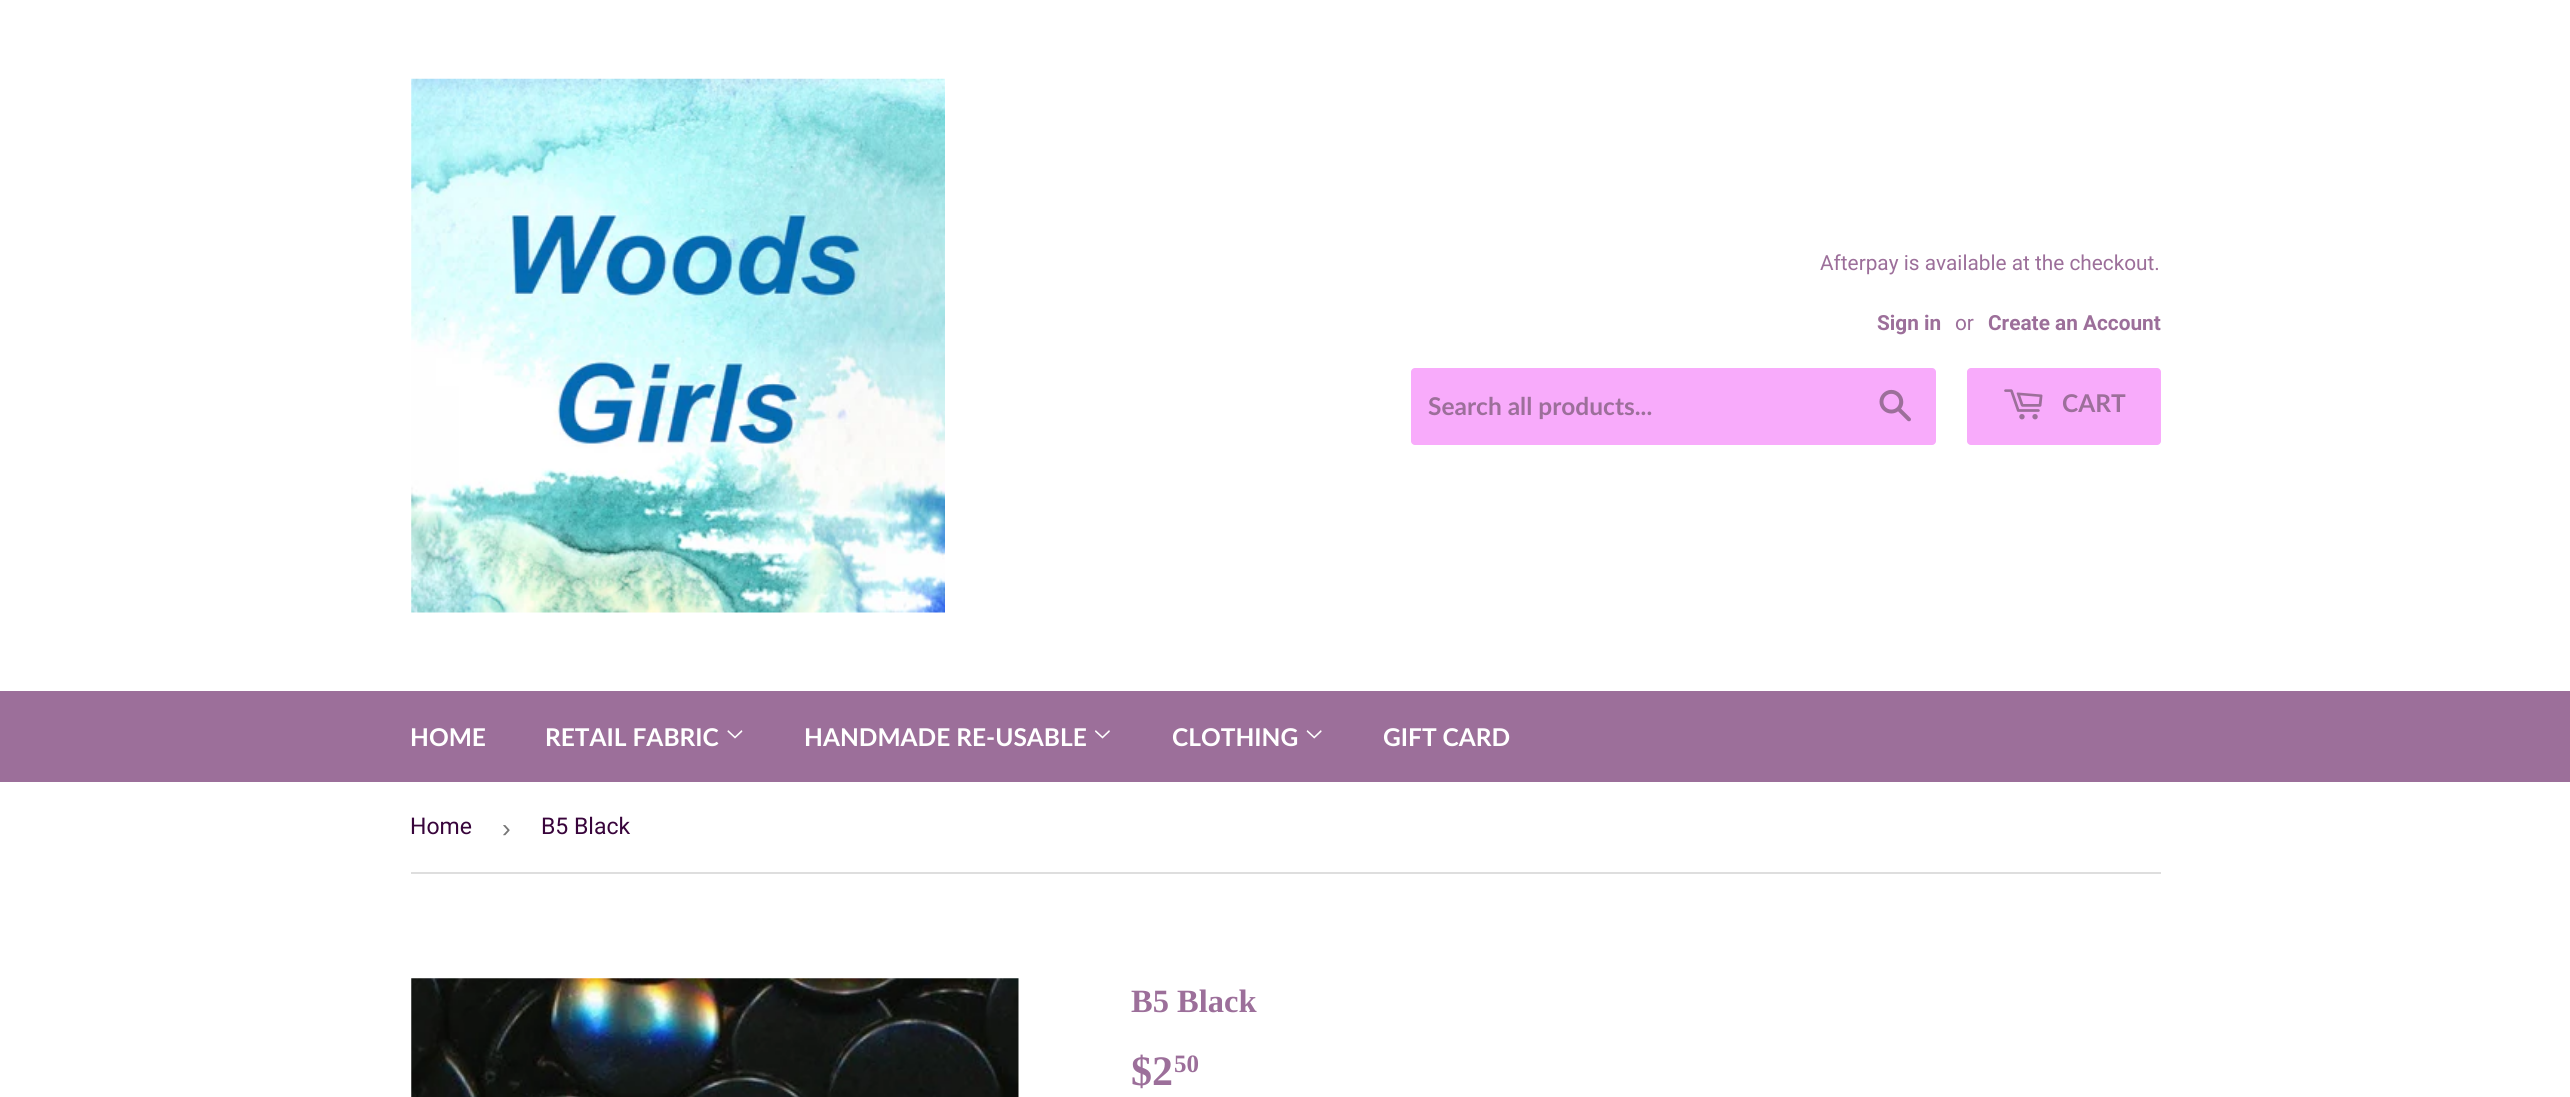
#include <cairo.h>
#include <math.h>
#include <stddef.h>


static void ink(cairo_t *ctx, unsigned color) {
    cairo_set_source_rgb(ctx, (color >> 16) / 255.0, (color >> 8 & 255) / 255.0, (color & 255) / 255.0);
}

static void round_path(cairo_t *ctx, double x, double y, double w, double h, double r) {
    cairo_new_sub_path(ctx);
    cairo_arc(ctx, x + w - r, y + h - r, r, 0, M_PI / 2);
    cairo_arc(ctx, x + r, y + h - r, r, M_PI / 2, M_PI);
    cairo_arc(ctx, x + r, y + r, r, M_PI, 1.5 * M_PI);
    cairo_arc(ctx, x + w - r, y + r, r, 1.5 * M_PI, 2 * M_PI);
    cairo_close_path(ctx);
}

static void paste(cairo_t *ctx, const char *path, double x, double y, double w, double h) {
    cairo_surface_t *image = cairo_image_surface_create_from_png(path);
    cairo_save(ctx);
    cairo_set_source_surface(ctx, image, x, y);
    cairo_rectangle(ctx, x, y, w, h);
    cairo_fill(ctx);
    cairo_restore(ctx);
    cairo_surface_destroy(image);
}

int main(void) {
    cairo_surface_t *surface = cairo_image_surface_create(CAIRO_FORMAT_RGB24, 2570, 1097);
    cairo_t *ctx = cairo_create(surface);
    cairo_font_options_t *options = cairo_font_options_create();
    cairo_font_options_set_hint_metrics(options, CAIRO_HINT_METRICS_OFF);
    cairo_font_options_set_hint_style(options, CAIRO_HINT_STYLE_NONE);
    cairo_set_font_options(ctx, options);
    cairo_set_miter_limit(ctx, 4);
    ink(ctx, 0xFFFFFF);
    cairo_paint(ctx);
    paste(ctx, "media/1.png", 411, 78, 534, 535);
    cairo_select_font_face(ctx, "Roboto", CAIRO_FONT_SLANT_NORMAL, CAIRO_FONT_WEIGHT_NORMAL);
    cairo_set_font_size(ctx, 20.8);
    ink(ctx, 0x9C6F9A);
    cairo_move_to(ctx, 1820, 270);
    cairo_show_text(ctx, "Afterpay is available at the checkout.");
    cairo_select_font_face(ctx, "Roboto", CAIRO_FONT_SLANT_NORMAL, CAIRO_FONT_WEIGHT_BOLD);
    cairo_move_to(ctx, 1877, 330);
    cairo_show_text(ctx, "Sign in");
    cairo_select_font_face(ctx, "Roboto", CAIRO_FONT_SLANT_NORMAL, CAIRO_FONT_WEIGHT_NORMAL);
    cairo_move_to(ctx, 1955, 330);
    cairo_show_text(ctx, "or");
    cairo_select_font_face(ctx, "Roboto", CAIRO_FONT_SLANT_NORMAL, CAIRO_FONT_WEIGHT_BOLD);
    cairo_move_to(ctx, 1988, 330);
    cairo_show_text(ctx, "Create an Account");
    ink(ctx, 0xF8ABFB);
    round_path(ctx, 1411, 368, 525, 77, 4);
    cairo_fill(ctx);
    cairo_select_font_face(ctx, "Lato", CAIRO_FONT_SLANT_NORMAL, CAIRO_FONT_WEIGHT_BOLD);
    cairo_set_font_size(ctx, 24.5);
    ink(ctx, 0x9C6F9A);
    cairo_move_to(ctx, 1428, 415);
    cairo_show_text(ctx, "Search all products...");
    paste(ctx, "media/2.png", 1879, 389, 32, 33);
    ink(ctx, 0xF8ABFB);
    round_path(ctx, 1967, 368, 194, 77, 4);
    cairo_fill(ctx);
    paste(ctx, "media/3.png", 2004, 389, 39, 31);
    ink(ctx, 0x9C6F9A);
    cairo_move_to(ctx, 2062, 412);
    cairo_show_text(ctx, "CART");
    cairo_rectangle(ctx, 0, 691, 2570, 91);
    cairo_fill(ctx);
    ink(ctx, 0xFFFFFF);
    cairo_move_to(ctx, 410, 746);
    cairo_show_text(ctx, "HOME");
    cairo_move_to(ctx, 545, 746);
    cairo_show_text(ctx, "RETAIL FABRIC");
    paste(ctx, "media/4.png", 727, 730, 16, 9);
    cairo_move_to(ctx, 804, 746);
    cairo_show_text(ctx, "HANDMADE RE-USABLE");
    paste(ctx, "media/5.png", 1095, 730, 15, 9);
    cairo_move_to(ctx, 1172, 746);
    cairo_show_text(ctx, "CLOTHING");
    paste(ctx, "media/6.png", 1306, 730, 16, 9);
    cairo_move_to(ctx, 1383, 746);
    cairo_show_text(ctx, "GIFT CARD");
    ink(ctx, 0xDEDEDE);
    cairo_rectangle(ctx, 411, 872, 1750, 2);
    cairo_fill(ctx);
    cairo_select_font_face(ctx, "Roboto", CAIRO_FONT_SLANT_NORMAL, CAIRO_FONT_WEIGHT_NORMAL);
    cairo_set_font_size(ctx, 23);
    ink(ctx, 0x38043B);
    cairo_move_to(ctx, 410, 834);
    cairo_show_text(ctx, "Home");
    cairo_select_font_face(ctx, "Liberation Sans", CAIRO_FONT_SLANT_NORMAL, CAIRO_FONT_WEIGHT_NORMAL);
    cairo_set_font_size(ctx, 26);
    ink(ctx, 0x767676);
    cairo_move_to(ctx, 502, 837);
    cairo_show_text(ctx, "›");
    cairo_select_font_face(ctx, "Roboto", CAIRO_FONT_SLANT_NORMAL, CAIRO_FONT_WEIGHT_NORMAL);
    cairo_set_font_size(ctx, 23);
    ink(ctx, 0x38043B);
    cairo_move_to(ctx, 541, 834);
    cairo_show_text(ctx, "B5 Black");
    paste(ctx, "media/7.png", 411, 978, 608, 119);
    cairo_select_font_face(ctx, "Liberation Serif", CAIRO_FONT_SLANT_NORMAL, CAIRO_FONT_WEIGHT_BOLD);
    cairo_set_font_size(ctx, 32.5);
    ink(ctx, 0x9C6F9A);
    cairo_move_to(ctx, 1131, 1012);
    cairo_show_text(ctx, "B5 Black");
    cairo_set_font_size(ctx, 42);
    cairo_move_to(ctx, 1131, 1085);
    cairo_show_text(ctx, "$2");
    cairo_set_font_size(ctx, 25);
    cairo_move_to(ctx, 1174, 1072);
    cairo_show_text(ctx, "50");
    cairo_surface_write_to_png(surface, "image.png");
    cairo_font_options_destroy(options);
    cairo_destroy(ctx);
    cairo_surface_destroy(surface);
    return 0;
}
